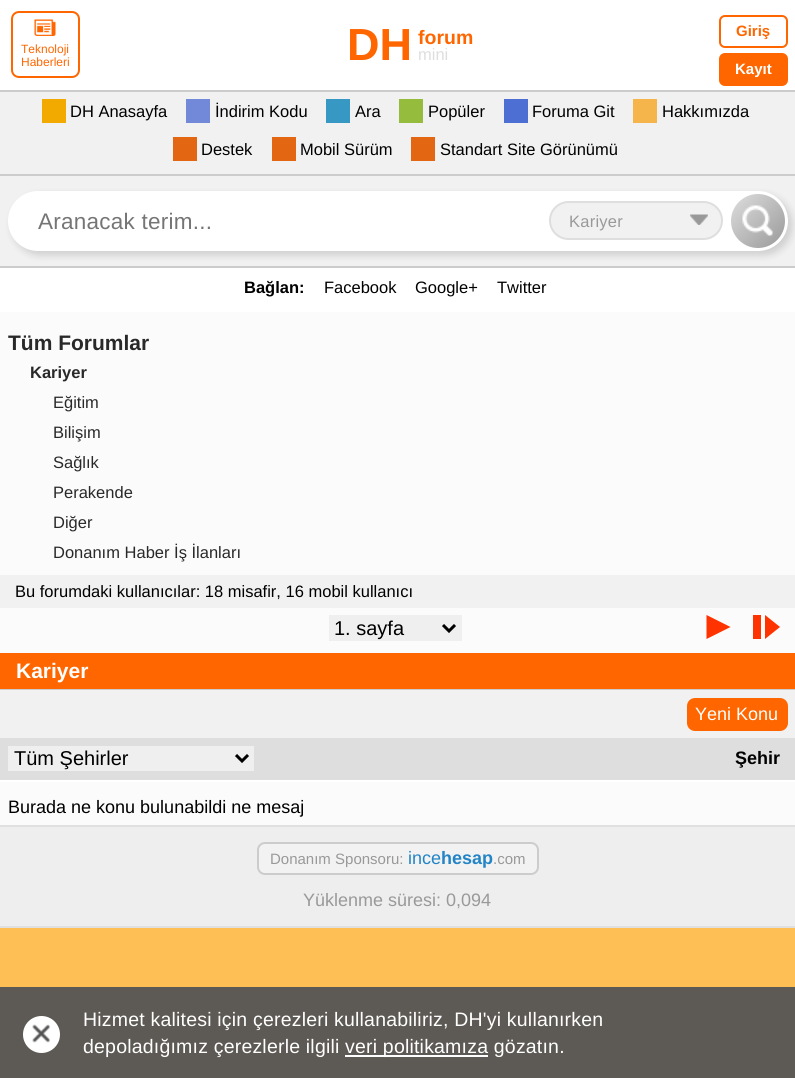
#include <cairo.h>
#include <math.h>
#include <stddef.h>

typedef struct { double x, y; const char *s; } line_t;
typedef struct { double x, y, w, h; unsigned color; } box_t;

static void ink(cairo_t *ctx, unsigned color) {
    cairo_set_source_rgb(ctx, (color >> 16) / 255.0, (color >> 8 & 255) / 255.0, (color & 255) / 255.0);
}

static void write_spaced(cairo_t *ctx, double x, double y, const char *s, double letter, double word) {
    cairo_move_to(ctx, x, y);
    while (*s) {
        char ch[5] = {0};
        int n = 0;
        do ch[n++] = *s++; while ((*s & 0xC0) == 0x80);
        cairo_show_text(ctx, ch);
        cairo_rel_move_to(ctx, letter + word * (*ch == ' '), 0);
    }
}

static void round_path(cairo_t *ctx, double x, double y, double w, double h, double r) {
    cairo_new_sub_path(ctx);
    cairo_arc(ctx, x + w - r, y + h - r, r, 0, M_PI / 2);
    cairo_arc(ctx, x + r, y + h - r, r, M_PI / 2, M_PI);
    cairo_arc(ctx, x + r, y + r, r, M_PI, 1.5 * M_PI);
    cairo_arc(ctx, x + w - r, y + r, r, 1.5 * M_PI, 2 * M_PI);
    cairo_close_path(ctx);
}

static void blur_box(cairo_t *ctx, double x, double y, double w, double h, double r, double blur, double alpha) {
    cairo_push_group_with_content(ctx, CAIRO_CONTENT_ALPHA);
    cairo_set_operator(ctx, CAIRO_OPERATOR_SOURCE);
    for (int i = 15; i >= -15 && fmin(w, h) + blur * i / 3 > 0; i -= 2) {
        double e = blur * i / 6;
        cairo_set_source_rgba(ctx, 0, 0, 0, alpha * erfc((i - 1) / 8.5) / 2);
        round_path(ctx, x - e, y - e, w + 2 * e, h + 2 * e, fmax(0, fmin(r + e + blur * .6, fmin(w, h) / 2 + e)));
        cairo_fill(ctx);
    }
    cairo_pattern_t *soft = cairo_pop_group(ctx);
    cairo_mask(ctx, soft);
    cairo_pattern_destroy(soft);
}

static void paste(cairo_t *ctx, const char *path, double x, double y, double w, double h) {
    cairo_surface_t *image = cairo_image_surface_create_from_png(path);
    cairo_save(ctx);
    cairo_set_source_surface(ctx, image, x, y);
    cairo_rectangle(ctx, x, y, w, h);
    cairo_fill(ctx);
    cairo_restore(ctx);
    cairo_surface_destroy(image);
}

int main(void) {
    cairo_surface_t *surface = cairo_image_surface_create(CAIRO_FORMAT_RGB24, 795, 1078);
    cairo_t *ctx = cairo_create(surface);
    cairo_font_options_t *options = cairo_font_options_create();
    cairo_font_options_set_hint_metrics(options, CAIRO_HINT_METRICS_OFF);
    cairo_font_options_set_hint_style(options, CAIRO_HINT_STYLE_NONE);
    cairo_set_font_options(ctx, options);
    cairo_set_miter_limit(ctx, 4);
    cairo_pattern_t *gradient;
    ink(ctx, 0xFEBF55);
    cairo_paint(ctx);
    ink(ctx, 0xFFFFFF);
    cairo_rectangle(ctx, 0, 0, 795, 90);
    cairo_fill(ctx);
    ink(ctx, 0xCCCCCC);
    cairo_rectangle(ctx, 0, 90, 795, 2);
    cairo_fill(ctx);
    round_path(ctx, 12, 12, 67, 65, 7);
    ink(ctx, 0xFF6600);
    cairo_stroke(ctx);
    paste(ctx, "media/1.png", 34, 19, 22, 17);
    cairo_select_font_face(ctx, "Liberation Sans", CAIRO_FONT_SLANT_NORMAL, CAIRO_FONT_WEIGHT_NORMAL);
    cairo_set_font_size(ctx, 12);
    cairo_move_to(ctx, 21, 53);
    cairo_show_text(ctx, "Teknoloji");
    cairo_move_to(ctx, 21, 66);
    cairo_show_text(ctx, "Haberleri");
    cairo_select_font_face(ctx, "Liberation Sans", CAIRO_FONT_SLANT_NORMAL, CAIRO_FONT_WEIGHT_BOLD);
    cairo_set_font_size(ctx, 45);
    cairo_move_to(ctx, 347, 60);
    cairo_show_text(ctx, "DH");
    cairo_set_font_size(ctx, 19.5);
    cairo_move_to(ctx, 418, 44);
    cairo_show_text(ctx, "forum");
    cairo_select_font_face(ctx, "Liberation Sans", CAIRO_FONT_SLANT_NORMAL, CAIRO_FONT_WEIGHT_NORMAL);
    cairo_set_font_size(ctx, 16.5);
    ink(ctx, 0xDEDEDE);
    cairo_move_to(ctx, 418, 60);
    cairo_show_text(ctx, "mini");
    round_path(ctx, 720, 16, 67, 31, 5);
    ink(ctx, 0xFF6600);
    cairo_stroke(ctx);
    cairo_select_font_face(ctx, "Liberation Sans", CAIRO_FONT_SLANT_NORMAL, CAIRO_FONT_WEIGHT_BOLD);
    cairo_set_font_size(ctx, 15);
    cairo_move_to(ctx, 736, 36);
    cairo_show_text(ctx, "Giriş");
    round_path(ctx, 720, 54, 67, 31, 5);
    cairo_fill_preserve(ctx);
    cairo_stroke(ctx);
    ink(ctx, 0xFFFFFF);
    cairo_move_to(ctx, 735, 74);
    cairo_show_text(ctx, "Kayıt");
    ink(ctx, 0xF1F1F1);
    cairo_rectangle(ctx, 0, 92, 795, 82);
    cairo_fill(ctx);
    ink(ctx, 0xF3AA00);
    cairo_rectangle(ctx, 42, 99, 24, 24);
    cairo_fill(ctx);
    cairo_select_font_face(ctx, "Liberation Sans", CAIRO_FONT_SLANT_NORMAL, CAIRO_FONT_WEIGHT_NORMAL);
    cairo_set_font_size(ctx, 16.5);
    ink(ctx, 0x000000);
    cairo_move_to(ctx, 70, 117);
    cairo_show_text(ctx, "DH Anasayfa");
    ink(ctx, 0x7288D8);
    cairo_rectangle(ctx, 186, 99, 24, 24);
    cairo_fill(ctx);
    ink(ctx, 0x000000);
    cairo_move_to(ctx, 215, 117);
    cairo_show_text(ctx, "İndirim Kodu");
    ink(ctx, 0x3798C4);
    cairo_rectangle(ctx, 326, 99, 24, 24);
    cairo_fill(ctx);
    ink(ctx, 0x000000);
    cairo_move_to(ctx, 355, 117);
    cairo_show_text(ctx, "Ara");
    ink(ctx, 0x96BC3D);
    cairo_rectangle(ctx, 399, 99, 24, 24);
    cairo_fill(ctx);
    ink(ctx, 0x000000);
    cairo_move_to(ctx, 428, 117);
    cairo_show_text(ctx, "Popüler");
    ink(ctx, 0x4D6FD4);
    cairo_rectangle(ctx, 504, 99, 24, 24);
    cairo_fill(ctx);
    ink(ctx, 0x000000);
    cairo_move_to(ctx, 532, 117);
    cairo_show_text(ctx, "Foruma Git");
    ink(ctx, 0xF5B54A);
    cairo_rectangle(ctx, 633, 99, 24, 24);
    cairo_fill(ctx);
    ink(ctx, 0x000000);
    cairo_move_to(ctx, 662, 117);
    cairo_show_text(ctx, "Hakkımızda");
    ink(ctx, 0xE36713);
    cairo_rectangle(ctx, 173, 137, 24, 24);
    cairo_fill(ctx);
    ink(ctx, 0x000000);
    cairo_move_to(ctx, 201, 155);
    cairo_show_text(ctx, "Destek");
    ink(ctx, 0xE36713);
    cairo_rectangle(ctx, 272, 137, 24, 24);
    cairo_fill(ctx);
    ink(ctx, 0x000000);
    cairo_move_to(ctx, 300, 155);
    cairo_show_text(ctx, "Mobil Sürüm");
    ink(ctx, 0xE36713);
    cairo_rectangle(ctx, 411, 137, 24, 24);
    cairo_fill(ctx);
    ink(ctx, 0x000000);
    cairo_move_to(ctx, 440, 155);
    cairo_show_text(ctx, "Standart Site Görünümü");
    {
        static const box_t items[] = {
            {0, 176, 795, 90, 0xF1F1F1},
            {0, 174, 795, 2, 0xCCCCCC},
            {0, 266, 795, 2, 0xCCCCCC},
        };
        for (size_t i = 0; i < sizeof items / sizeof *items; i++) {
            ink(ctx, items[i].color);
            cairo_rectangle(ctx, items[i].x, items[i].y, items[i].w, items[i].h);
            cairo_fill(ctx);
        }
    }
    ink(ctx, 0x000000);
    blur_box(ctx, 12, 195, 780, 60, 30, 4, 0.15);
    ink(ctx, 0xFFFFFF);
    round_path(ctx, 8, 191, 780, 60, 30);
    cairo_fill(ctx);
    cairo_set_font_size(ctx, 22.5);
    ink(ctx, 0x757575);
    write_spaced(ctx, 38, 229, "Aranacak terim...", 0.25, 0);
    ink(ctx, 0xF1F1F1);
    round_path(ctx, 550, 202, 172, 37, 18.5);
    cairo_fill_preserve(ctx);
    ink(ctx, 0xDEDEDE);
    cairo_stroke(ctx);
    cairo_set_font_size(ctx, 16.5);
    ink(ctx, 0x999999);
    write_spaced(ctx, 569, 227, "Kariyer", 0.25, 0);
    paste(ctx, "media/2.png", 690, 214, 18, 11);
    gradient = cairo_pattern_create_linear(731, 194, 785, 248);
    cairo_pattern_add_color_stop_rgba(gradient, 0, 0.871, 0.871, 0.871, 1);
    cairo_pattern_add_color_stop_rgba(gradient, 1, 0.6, 0.6, 0.6, 1);
    cairo_set_source(ctx, gradient);
    cairo_pattern_destroy(gradient);
    cairo_arc(ctx, 758, 221, 27, 0, 2 * M_PI);
    cairo_fill(ctx);
    paste(ctx, "media/3.png", 742, 205, 31, 31);
    ink(ctx, 0xFFFFFF);
    cairo_rectangle(ctx, 0, 268, 795, 44);
    cairo_fill(ctx);
    cairo_select_font_face(ctx, "Liberation Sans", CAIRO_FONT_SLANT_NORMAL, CAIRO_FONT_WEIGHT_BOLD);
    ink(ctx, 0x000000);
    cairo_move_to(ctx, 244, 293);
    cairo_show_text(ctx, "Bağlan:");
    cairo_select_font_face(ctx, "Liberation Sans", CAIRO_FONT_SLANT_NORMAL, CAIRO_FONT_WEIGHT_NORMAL);
    {
        static const line_t items[] = {
            {324, 293, "Facebook"},
            {415, 293, "Google+"},
            {497, 293, "Twitter"},
        };
        for (size_t i = 0; i < sizeof items / sizeof *items; i++) {
            cairo_move_to(ctx, items[i].x, items[i].y);
            cairo_show_text(ctx, items[i].s);
        }
    }
    ink(ctx, 0xFBFBFB);
    cairo_rectangle(ctx, 0, 312, 795, 513);
    cairo_fill(ctx);
    cairo_select_font_face(ctx, "Liberation Sans", CAIRO_FONT_SLANT_NORMAL, CAIRO_FONT_WEIGHT_BOLD);
    cairo_set_font_size(ctx, 21);
    ink(ctx, 0x292929);
    cairo_move_to(ctx, 8, 350);
    cairo_show_text(ctx, "Tüm Forumlar");
    cairo_set_font_size(ctx, 16.5);
    cairo_move_to(ctx, 30, 378);
    cairo_show_text(ctx, "Kariyer");
    cairo_select_font_face(ctx, "Liberation Sans", CAIRO_FONT_SLANT_NORMAL, CAIRO_FONT_WEIGHT_NORMAL);
    {
        static const line_t items[] = {
            {53, 408, "Eğitim"},
            {53, 438, "Bilişim"},
            {53, 468, "Sağlık"},
            {53, 498, "Perakende"},
            {53, 528, "Diğer"},
            {53, 558, "Donanım Haber İş İlanları"},
        };
        for (size_t i = 0; i < sizeof items / sizeof *items; i++) {
            cairo_move_to(ctx, items[i].x, items[i].y);
            cairo_show_text(ctx, items[i].s);
        }
    }
    ink(ctx, 0xF1F1F1);
    cairo_rectangle(ctx, 0, 575, 795, 33);
    cairo_fill(ctx);
    ink(ctx, 0x000000);
    cairo_move_to(ctx, 15, 597);
    cairo_show_text(ctx, "Bu forumdaki kullanıcılar: 18 misafir, 16 mobil kullanıcı");
    ink(ctx, 0xEFEFEF);
    cairo_rectangle(ctx, 329, 615, 133, 26);
    cairo_fill(ctx);
    cairo_new_path(ctx);
    cairo_move_to(ctx, 443, 625);
    cairo_line_to(ctx, 449, 631);
    cairo_line_to(ctx, 455, 625);
    ink(ctx, 0x000000);
    cairo_set_line_width(ctx, 3);
    cairo_stroke(ctx);
    cairo_set_font_size(ctx, 20);
    cairo_move_to(ctx, 334, 635);
    cairo_show_text(ctx, "1. sayfa");
    ink(ctx, 0xFF3300);
    cairo_new_path(ctx);
    cairo_move_to(ctx, 706.5, 639);
    cairo_line_to(ctx, 706.5, 615);
    cairo_line_to(ctx, 730.5, 627);
    cairo_close_path(ctx);
    cairo_fill(ctx);
    cairo_new_path(ctx);
    cairo_move_to(ctx, 765, 639);
    cairo_line_to(ctx, 765, 615);
    cairo_line_to(ctx, 780, 627);
    cairo_close_path(ctx);
    cairo_fill(ctx);
    {
        static const box_t items[] = {
            {753, 615, 8, 24, 0xFF3300},
            {0, 653, 795, 36, 0xFF6600},
            {0, 689, 795, 1, 0xCCCCCC},
        };
        for (size_t i = 0; i < sizeof items / sizeof *items; i++) {
            ink(ctx, items[i].color);
            cairo_rectangle(ctx, items[i].x, items[i].y, items[i].w, items[i].h);
            cairo_fill(ctx);
        }
    }
    cairo_select_font_face(ctx, "Liberation Sans", CAIRO_FONT_SLANT_NORMAL, CAIRO_FONT_WEIGHT_BOLD);
    cairo_set_font_size(ctx, 21);
    ink(ctx, 0xFFFFFF);
    cairo_move_to(ctx, 16, 678);
    cairo_show_text(ctx, "Kariyer");
    ink(ctx, 0xF1F1F1);
    cairo_rectangle(ctx, 0, 690, 795, 48);
    cairo_fill(ctx);
    ink(ctx, 0xFF6600);
    round_path(ctx, 687, 698, 101, 33, 8);
    cairo_fill(ctx);
    cairo_select_font_face(ctx, "Liberation Sans", CAIRO_FONT_SLANT_NORMAL, CAIRO_FONT_WEIGHT_NORMAL);
    cairo_set_font_size(ctx, 18);
    ink(ctx, 0xFFFFFF);
    cairo_move_to(ctx, 695, 720);
    cairo_show_text(ctx, "Yeni Konu");
    {
        static const box_t items[] = {
            {0, 738, 795, 42, 0xDEDEDE},
            {0, 780, 795, 2, 0xFFFFFF},
            {8, 746, 246, 25, 0xEFEFEF},
        };
        for (size_t i = 0; i < sizeof items / sizeof *items; i++) {
            ink(ctx, items[i].color);
            cairo_rectangle(ctx, items[i].x, items[i].y, items[i].w, items[i].h);
            cairo_fill(ctx);
        }
    }
    cairo_new_path(ctx);
    cairo_move_to(ctx, 236, 755);
    cairo_line_to(ctx, 242, 761);
    cairo_line_to(ctx, 248, 755);
    ink(ctx, 0x000000);
    cairo_stroke(ctx);
    cairo_set_font_size(ctx, 20);
    cairo_move_to(ctx, 14, 765);
    cairo_show_text(ctx, "Tüm Şehirler");
    cairo_select_font_face(ctx, "Liberation Sans", CAIRO_FONT_SLANT_NORMAL, CAIRO_FONT_WEIGHT_BOLD);
    cairo_set_font_size(ctx, 18);
    cairo_move_to(ctx, 735, 764);
    cairo_show_text(ctx, "Şehir");
    cairo_select_font_face(ctx, "Liberation Sans", CAIRO_FONT_SLANT_NORMAL, CAIRO_FONT_WEIGHT_NORMAL);
    cairo_move_to(ctx, 8, 813);
    cairo_show_text(ctx, "Burada ne konu bulunabildi ne mesaj");
    {
        static const box_t items[] = {
            {0, 827, 795, 99, 0xEEEEEE},
            {0, 825, 795, 2, 0xE0E0E0},
            {0, 926, 795, 2, 0xE0E0E0},
        };
        for (size_t i = 0; i < sizeof items / sizeof *items; i++) {
            ink(ctx, items[i].color);
            cairo_rectangle(ctx, items[i].x, items[i].y, items[i].w, items[i].h);
            cairo_fill(ctx);
        }
    }
    ink(ctx, 0xF2F2F2);
    round_path(ctx, 258, 843, 280, 31, 7);
    cairo_fill_preserve(ctx);
    ink(ctx, 0xCCCCCC);
    cairo_set_line_width(ctx, 2);
    cairo_stroke(ctx);
    cairo_set_font_size(ctx, 15);
    ink(ctx, 0x999999);
    cairo_move_to(ctx, 270, 864);
    cairo_show_text(ctx, "Donanım Sponsoru:");
    cairo_set_font_size(ctx, 18);
    ink(ctx, 0x2384C6);
    cairo_move_to(ctx, 408, 864);
    cairo_show_text(ctx, "ince");
    cairo_select_font_face(ctx, "Liberation Sans", CAIRO_FONT_SLANT_NORMAL, CAIRO_FONT_WEIGHT_BOLD);
    cairo_move_to(ctx, 441, 864);
    cairo_show_text(ctx, "hesap");
    cairo_select_font_face(ctx, "Liberation Sans", CAIRO_FONT_SLANT_NORMAL, CAIRO_FONT_WEIGHT_NORMAL);
    cairo_set_font_size(ctx, 15);
    ink(ctx, 0x999999);
    cairo_move_to(ctx, 493, 864);
    cairo_show_text(ctx, ".com");
    cairo_set_font_size(ctx, 18);
    cairo_move_to(ctx, 303, 906);
    cairo_show_text(ctx, "Yüklenme süresi: 0,094");
    ink(ctx, 0x5D5954);
    cairo_rectangle(ctx, 0, 987, 795, 91);
    cairo_fill(ctx);
    ink(ctx, 0xFFFFFF);
    cairo_arc(ctx, 41.5, 1034.5, 18.5, 0, 2 * M_PI);
    cairo_fill(ctx);
    paste(ctx, "media/4.png", 32, 1024, 18, 19);
    cairo_set_font_size(ctx, 19.5);
    write_spaced(ctx, 83, 1026, "Hizmet kalitesi için çerezleri kullanabiliriz, DH'yi kullanırken", 0.2, 0);
    write_spaced(ctx, 83, 1053, "depoladığımız çerezlerle ilgili", 0.2, 0);
    cairo_rectangle(ctx, 345, 1055, 143, 2);
    cairo_fill(ctx);
    write_spaced(ctx, 345, 1053, "veri politikamıza gözatın.", 0.2, 0);
    cairo_surface_write_to_png(surface, "image.png");
    cairo_font_options_destroy(options);
    cairo_destroy(ctx);
    cairo_surface_destroy(surface);
    return 0;
}
